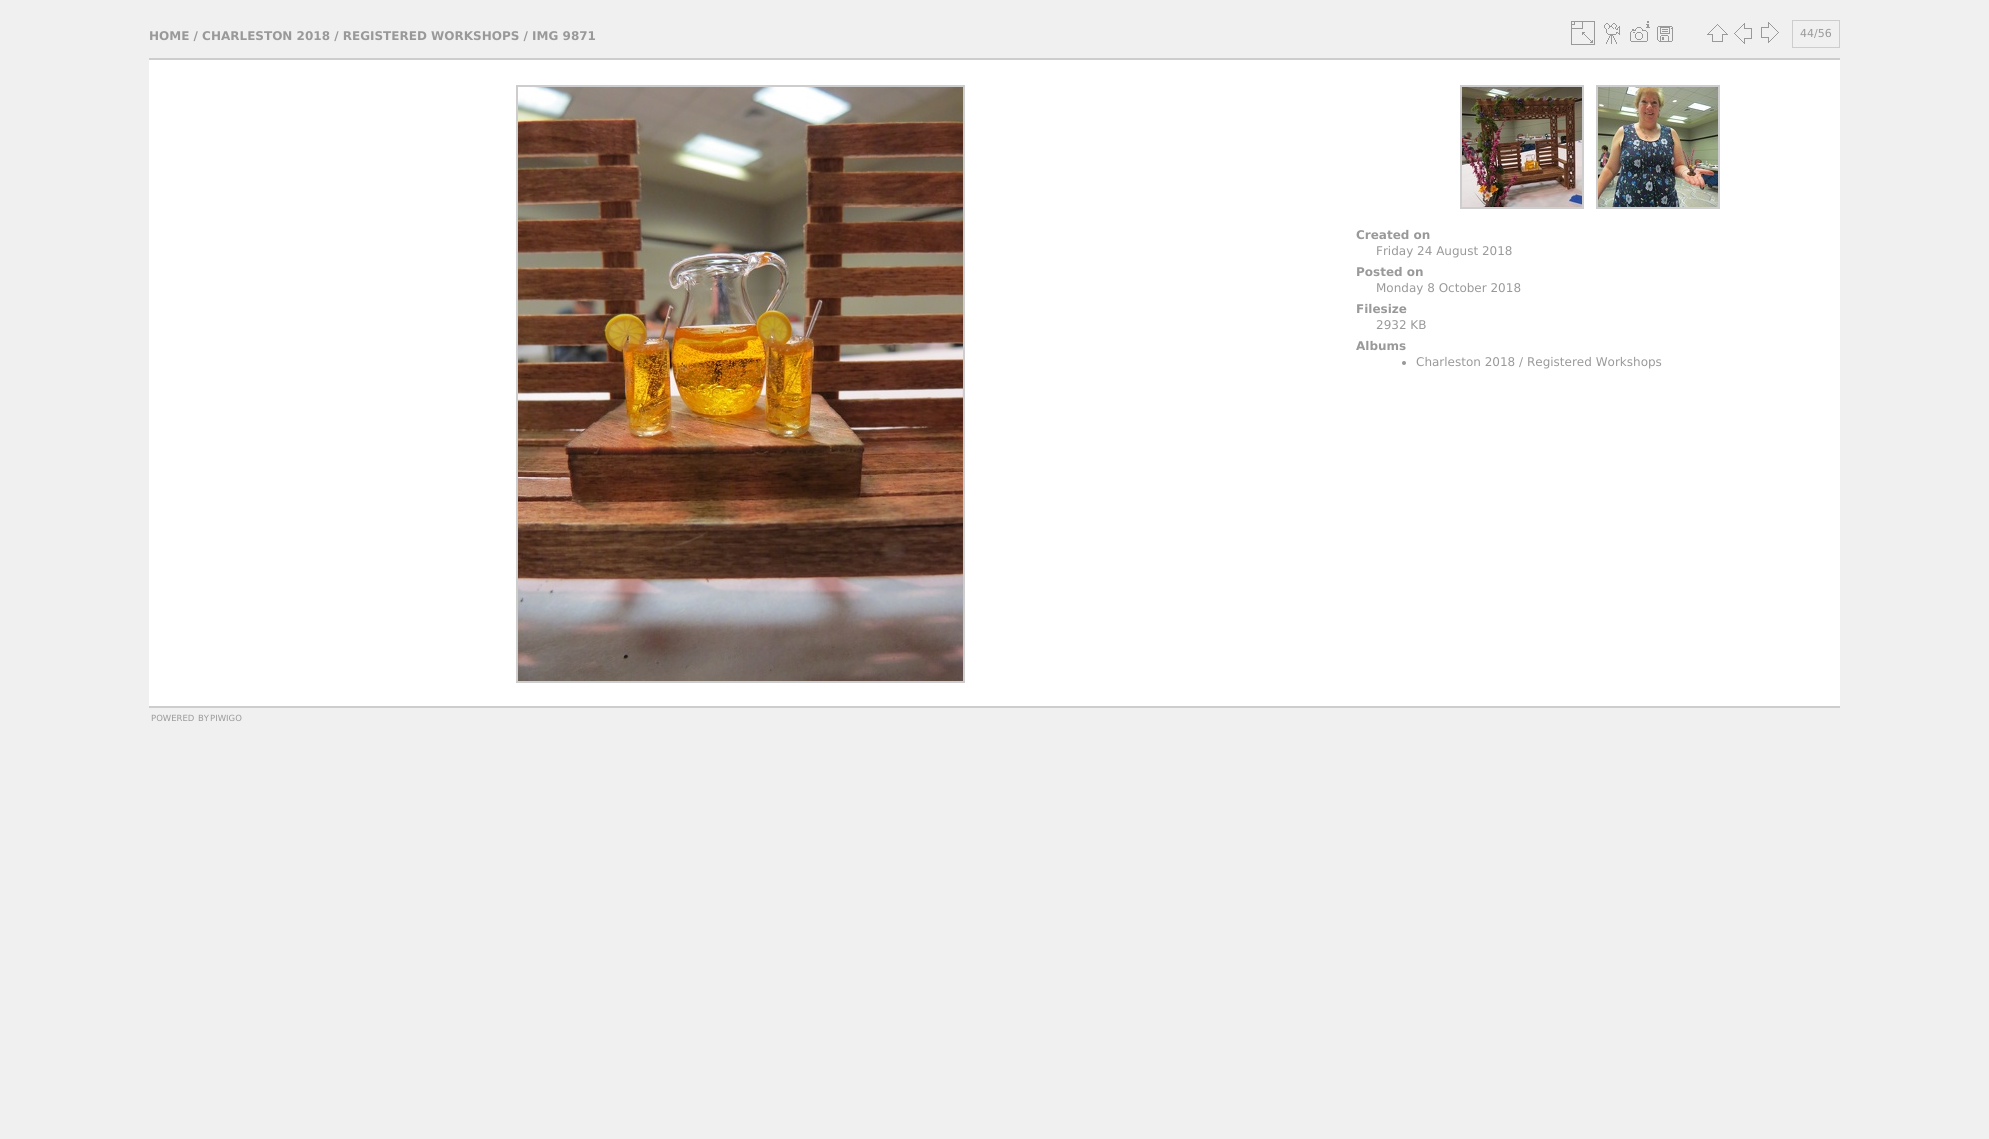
#include <cairo.h>
#include <math.h>
#include <stddef.h>

typedef struct { double x, y; const char *s; } line_t;

static void ink(cairo_t *ctx, unsigned color) {
    cairo_set_source_rgb(ctx, (color >> 16) / 255.0, (color >> 8 & 255) / 255.0, (color & 255) / 255.0);
}

static void paste(cairo_t *ctx, const char *path, double x, double y, double w, double h) {
    cairo_surface_t *image = cairo_image_surface_create_from_png(path);
    cairo_save(ctx);
    cairo_set_source_surface(ctx, image, x, y);
    cairo_rectangle(ctx, x, y, w, h);
    cairo_fill(ctx);
    cairo_restore(ctx);
    cairo_surface_destroy(image);
}

int main(void) {
    cairo_surface_t *surface = cairo_image_surface_create(CAIRO_FORMAT_RGB24, 1989, 1139);
    cairo_t *ctx = cairo_create(surface);
    cairo_font_options_t *options = cairo_font_options_create();
    cairo_font_options_set_hint_metrics(options, CAIRO_HINT_METRICS_OFF);
    cairo_font_options_set_hint_style(options, CAIRO_HINT_STYLE_NONE);
    cairo_set_font_options(ctx, options);
    cairo_set_miter_limit(ctx, 4);
    ink(ctx, 0xF0F0F0);
    cairo_paint(ctx);
    ink(ctx, 0xCDCDCD);
    cairo_rectangle(ctx, 149, 706, 1691, 2);
    cairo_fill(ctx);
    cairo_select_font_face(ctx, "DejaVu Sans", CAIRO_FONT_SLANT_NORMAL, CAIRO_FONT_WEIGHT_BOLD);
    cairo_set_font_size(ctx, 12);
    ink(ctx, 0x999999);
    cairo_move_to(ctx, 149, 40);
    cairo_show_text(ctx, "HOME / CHARLESTON 2018 / REGISTERED WORKSHOPS / IMG 9871");
    paste(ctx, "media/1.png", 1571, 21, 24, 24);
    paste(ctx, "media/2.png", 1604, 23, 16, 21);
    paste(ctx, "media/3.png", 1630, 21, 20, 21);
    paste(ctx, "media/4.png", 1657, 26, 16, 16);
    paste(ctx, "media/5.png", 1707, 24, 21, 18);
    paste(ctx, "media/6.png", 1734, 23, 18, 21);
    paste(ctx, "media/7.png", 1761, 22, 18, 21);
    cairo_rectangle(ctx, 1792.5, 20.5, 47, 27);
    ink(ctx, 0xCDCDCD);
    cairo_set_line_width(ctx, 1);
    cairo_stroke(ctx);
    cairo_select_font_face(ctx, "DejaVu Sans", CAIRO_FONT_SLANT_NORMAL, CAIRO_FONT_WEIGHT_NORMAL);
    cairo_set_font_size(ctx, 11);
    ink(ctx, 0x999999);
    cairo_move_to(ctx, 1800, 37);
    cairo_show_text(ctx, "44/56");
    ink(ctx, 0xFFFFFF);
    cairo_rectangle(ctx, 149, 60, 1691, 646);
    cairo_fill(ctx);
    ink(ctx, 0xCDCDCD);
    cairo_rectangle(ctx, 149, 58, 1691, 2);
    cairo_fill(ctx);
    cairo_rectangle(ctx, 517, 86, 447, 596);
    cairo_set_line_width(ctx, 2);
    cairo_stroke(ctx);
    paste(ctx, "media/8.png", 518, 87, 445, 594);
    cairo_rectangle(ctx, 1461, 86, 122, 122);
    cairo_stroke(ctx);
    paste(ctx, "media/9.png", 1462, 87, 120, 120);
    cairo_rectangle(ctx, 1597, 86, 122, 122);
    cairo_stroke(ctx);
    paste(ctx, "media/10.png", 1598, 87, 120, 120);
    cairo_select_font_face(ctx, "DejaVu Sans", CAIRO_FONT_SLANT_NORMAL, CAIRO_FONT_WEIGHT_BOLD);
    cairo_set_font_size(ctx, 12);
    ink(ctx, 0x999999);
    cairo_move_to(ctx, 1356, 239);
    cairo_show_text(ctx, "Created on");
    cairo_select_font_face(ctx, "DejaVu Sans", CAIRO_FONT_SLANT_NORMAL, CAIRO_FONT_WEIGHT_NORMAL);
    cairo_move_to(ctx, 1376, 255);
    cairo_show_text(ctx, "Friday 24 August 2018");
    cairo_select_font_face(ctx, "DejaVu Sans", CAIRO_FONT_SLANT_NORMAL, CAIRO_FONT_WEIGHT_BOLD);
    cairo_move_to(ctx, 1356, 276);
    cairo_show_text(ctx, "Posted on");
    cairo_select_font_face(ctx, "DejaVu Sans", CAIRO_FONT_SLANT_NORMAL, CAIRO_FONT_WEIGHT_NORMAL);
    cairo_move_to(ctx, 1376, 292);
    cairo_show_text(ctx, "Monday 8 October 2018");
    cairo_select_font_face(ctx, "DejaVu Sans", CAIRO_FONT_SLANT_NORMAL, CAIRO_FONT_WEIGHT_BOLD);
    cairo_move_to(ctx, 1356, 313);
    cairo_show_text(ctx, "Filesize");
    cairo_select_font_face(ctx, "DejaVu Sans", CAIRO_FONT_SLANT_NORMAL, CAIRO_FONT_WEIGHT_NORMAL);
    cairo_move_to(ctx, 1376, 329);
    cairo_show_text(ctx, "2932 KB");
    cairo_select_font_face(ctx, "DejaVu Sans", CAIRO_FONT_SLANT_NORMAL, CAIRO_FONT_WEIGHT_BOLD);
    cairo_move_to(ctx, 1356, 350);
    cairo_show_text(ctx, "Albums");
    cairo_new_path(ctx);
    cairo_arc(ctx, 1404, 363, 2, 0, 2 * M_PI);
    cairo_fill(ctx);
    cairo_select_font_face(ctx, "DejaVu Sans", CAIRO_FONT_SLANT_NORMAL, CAIRO_FONT_WEIGHT_NORMAL);
    cairo_move_to(ctx, 1416, 366);
    cairo_show_text(ctx, "Charleston 2018 / Registered Workshops");
    cairo_set_font_size(ctx, 8.5);
    {
        static const line_t items[] = {
            {151, 721, "POWERED"},
            {198, 721, "BY"},
            {210, 721, "PIWIGO"},
        };
        for (size_t i = 0; i < sizeof items / sizeof *items; i++) {
            cairo_move_to(ctx, items[i].x, items[i].y);
            cairo_show_text(ctx, items[i].s);
        }
    }
    cairo_surface_write_to_png(surface, "image.png");
    cairo_font_options_destroy(options);
    cairo_destroy(ctx);
    cairo_surface_destroy(surface);
    return 0;
}
